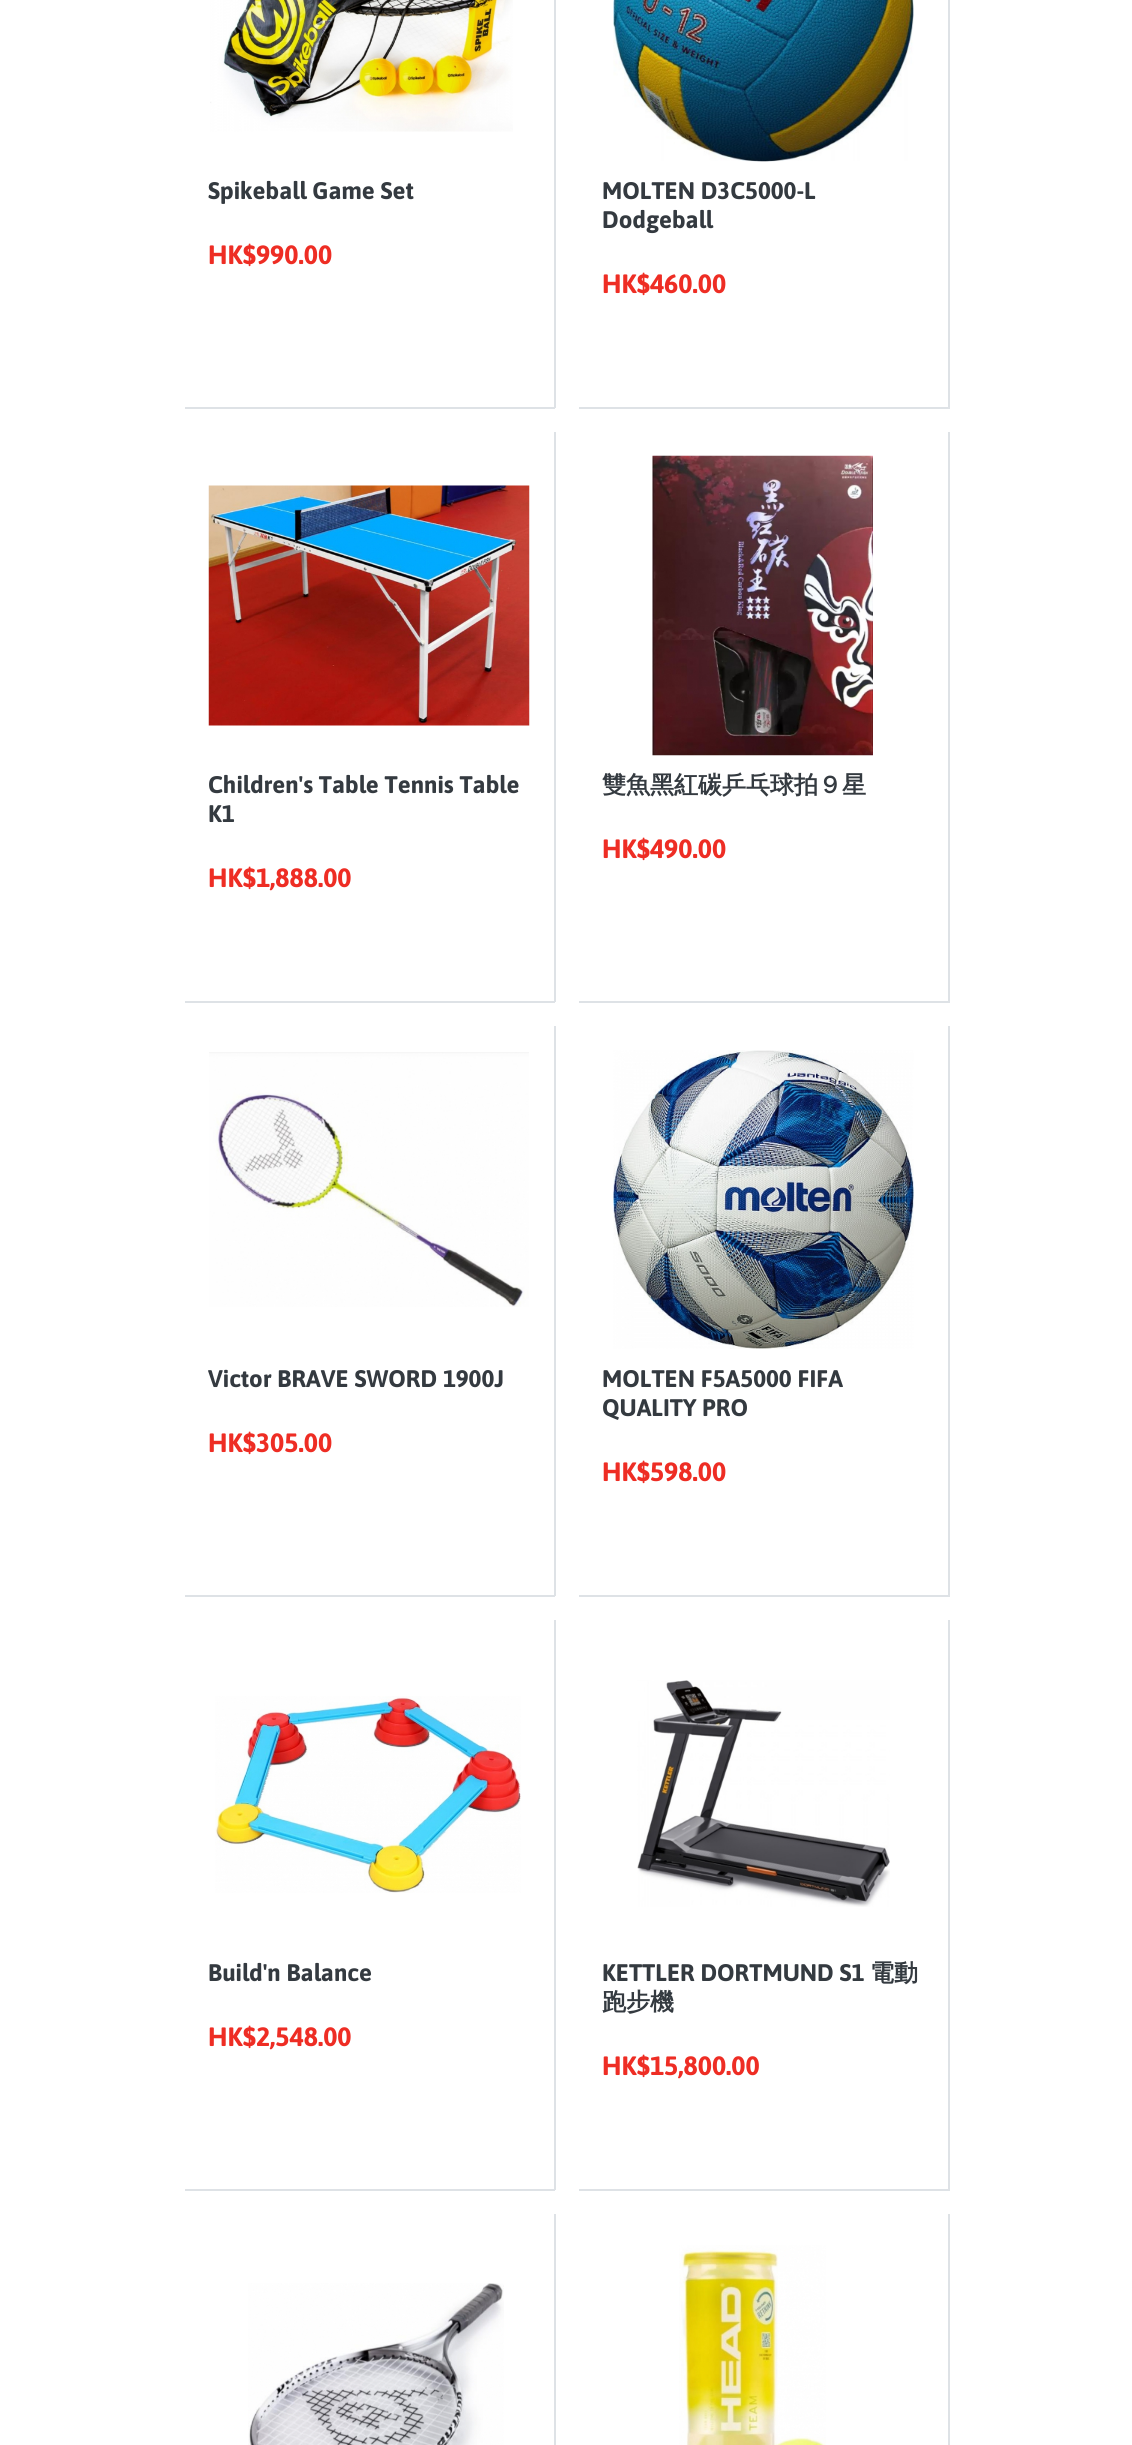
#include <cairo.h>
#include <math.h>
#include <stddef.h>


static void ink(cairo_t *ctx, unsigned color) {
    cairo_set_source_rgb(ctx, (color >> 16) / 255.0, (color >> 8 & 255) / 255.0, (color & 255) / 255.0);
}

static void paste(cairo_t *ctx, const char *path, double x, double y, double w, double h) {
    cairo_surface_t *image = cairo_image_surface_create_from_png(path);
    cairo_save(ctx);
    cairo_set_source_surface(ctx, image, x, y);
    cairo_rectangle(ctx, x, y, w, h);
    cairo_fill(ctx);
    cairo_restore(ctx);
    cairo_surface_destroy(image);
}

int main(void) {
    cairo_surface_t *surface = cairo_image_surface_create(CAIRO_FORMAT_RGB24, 1132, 2445);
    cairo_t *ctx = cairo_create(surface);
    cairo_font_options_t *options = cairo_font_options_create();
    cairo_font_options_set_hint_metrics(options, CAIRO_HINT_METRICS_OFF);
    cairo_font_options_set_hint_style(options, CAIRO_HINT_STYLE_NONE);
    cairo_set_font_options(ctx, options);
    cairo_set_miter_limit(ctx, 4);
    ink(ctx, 0xFFFFFF);
    cairo_paint(ctx);
    ink(ctx, 0xDEE2E6);
    cairo_rectangle(ctx, 554, 0, 2, 408);
    cairo_fill(ctx);
    cairo_rectangle(ctx, 185, 407, 370, 2);
    cairo_fill(ctx);
    paste(ctx, "media/1.png", 210, 0, 303, 132);
    cairo_select_font_face(ctx, "Asap", CAIRO_FONT_SLANT_NORMAL, CAIRO_FONT_WEIGHT_BOLD);
    cairo_set_font_size(ctx, 24);
    ink(ctx, 0x343A40);
    cairo_move_to(ctx, 208, 199);
    cairo_show_text(ctx, "Spikeball Game Set");
    cairo_set_font_size(ctx, 26.5);
    ink(ctx, 0xEE2D24);
    cairo_move_to(ctx, 208, 264);
    cairo_show_text(ctx, "HK$990.00");
    ink(ctx, 0xDEE2E6);
    cairo_rectangle(ctx, 948, 0, 2, 408);
    cairo_fill(ctx);
    cairo_rectangle(ctx, 579, 407, 371, 2);
    cairo_fill(ctx);
    paste(ctx, "media/2.png", 613, 0, 301, 162);
    cairo_set_font_size(ctx, 24);
    ink(ctx, 0x343A40);
    cairo_move_to(ctx, 602, 199);
    cairo_show_text(ctx, "MOLTEN D3C5000-L");
    cairo_move_to(ctx, 602, 228);
    cairo_show_text(ctx, "Dodgeball");
    cairo_set_font_size(ctx, 26.5);
    ink(ctx, 0xEE2D24);
    cairo_move_to(ctx, 602, 293);
    cairo_show_text(ctx, "HK$460.00");
    ink(ctx, 0xDEE2E6);
    cairo_rectangle(ctx, 554, 432, 2, 570);
    cairo_fill(ctx);
    cairo_rectangle(ctx, 185, 1001, 370, 2);
    cairo_fill(ctx);
    paste(ctx, "media/3.png", 208, 485, 322, 241);
    cairo_set_font_size(ctx, 24);
    ink(ctx, 0x343A40);
    cairo_move_to(ctx, 208, 793);
    cairo_show_text(ctx, "Children's Table Tennis Table");
    cairo_move_to(ctx, 208, 822);
    cairo_show_text(ctx, "K1");
    cairo_set_font_size(ctx, 26.5);
    ink(ctx, 0xEE2D24);
    cairo_move_to(ctx, 208, 887);
    cairo_show_text(ctx, "HK$1,888.00");
    ink(ctx, 0xDEE2E6);
    cairo_rectangle(ctx, 948, 432, 2, 570);
    cairo_fill(ctx);
    cairo_rectangle(ctx, 579, 1001, 371, 2);
    cairo_fill(ctx);
    paste(ctx, "media/4.png", 652, 455, 221, 301);
    cairo_select_font_face(ctx, "WenQuanYi Zen Hei", CAIRO_FONT_SLANT_NORMAL, CAIRO_FONT_WEIGHT_BOLD);
    cairo_set_font_size(ctx, 24);
    ink(ctx, 0x343A40);
    cairo_move_to(ctx, 602, 793);
    cairo_show_text(ctx, "雙魚黑紅碳乒乓球拍９星");
    cairo_select_font_face(ctx, "Asap", CAIRO_FONT_SLANT_NORMAL, CAIRO_FONT_WEIGHT_BOLD);
    cairo_set_font_size(ctx, 26.5);
    ink(ctx, 0xEE2D24);
    cairo_move_to(ctx, 602, 858);
    cairo_show_text(ctx, "HK$490.00");
    ink(ctx, 0xDEE2E6);
    cairo_rectangle(ctx, 554, 1026, 2, 570);
    cairo_fill(ctx);
    cairo_rectangle(ctx, 185, 1595, 370, 2);
    cairo_fill(ctx);
    paste(ctx, "media/5.png", 209, 1052, 320, 255);
    cairo_set_font_size(ctx, 24);
    ink(ctx, 0x343A40);
    cairo_move_to(ctx, 208, 1387);
    cairo_show_text(ctx, "Victor BRAVE SWORD 1900J");
    cairo_set_font_size(ctx, 26.5);
    ink(ctx, 0xEE2D24);
    cairo_move_to(ctx, 208, 1452);
    cairo_show_text(ctx, "HK$305.00");
    ink(ctx, 0xDEE2E6);
    cairo_rectangle(ctx, 948, 1026, 2, 570);
    cairo_fill(ctx);
    cairo_rectangle(ctx, 579, 1595, 371, 2);
    cairo_fill(ctx);
    paste(ctx, "media/6.png", 613, 1050, 301, 299);
    cairo_set_font_size(ctx, 24);
    ink(ctx, 0x343A40);
    cairo_move_to(ctx, 602, 1387);
    cairo_show_text(ctx, "MOLTEN F5A5000 FIFA");
    cairo_move_to(ctx, 602, 1416);
    cairo_show_text(ctx, "QUALITY PRO");
    cairo_set_font_size(ctx, 26.5);
    ink(ctx, 0xEE2D24);
    cairo_move_to(ctx, 602, 1481);
    cairo_show_text(ctx, "HK$598.00");
    ink(ctx, 0xDEE2E6);
    cairo_rectangle(ctx, 554, 1620, 2, 570);
    cairo_fill(ctx);
    cairo_rectangle(ctx, 185, 2189, 370, 2);
    cairo_fill(ctx);
    paste(ctx, "media/7.png", 215, 1696, 306, 197);
    cairo_set_font_size(ctx, 24);
    ink(ctx, 0x343A40);
    cairo_move_to(ctx, 208, 1981);
    cairo_show_text(ctx, "Build'n Balance");
    cairo_set_font_size(ctx, 26.5);
    ink(ctx, 0xEE2D24);
    cairo_move_to(ctx, 208, 2046);
    cairo_show_text(ctx, "HK$2,548.00");
    ink(ctx, 0xDEE2E6);
    cairo_rectangle(ctx, 948, 1620, 2, 570);
    cairo_fill(ctx);
    cairo_rectangle(ctx, 579, 2189, 371, 2);
    cairo_fill(ctx);
    paste(ctx, "media/8.png", 637, 1680, 253, 227);
    cairo_set_font_size(ctx, 24);
    ink(ctx, 0x343A40);
    cairo_move_to(ctx, 602, 1981);
    cairo_show_text(ctx, "KETTLER DORTMUND S1");
    cairo_select_font_face(ctx, "WenQuanYi Zen Hei", CAIRO_FONT_SLANT_NORMAL, CAIRO_FONT_WEIGHT_BOLD);
    cairo_move_to(ctx, 870, 1981);
    cairo_show_text(ctx, "電動");
    cairo_move_to(ctx, 602, 2010);
    cairo_show_text(ctx, "跑步機");
    cairo_select_font_face(ctx, "Asap", CAIRO_FONT_SLANT_NORMAL, CAIRO_FONT_WEIGHT_BOLD);
    cairo_set_font_size(ctx, 26.5);
    ink(ctx, 0xEE2D24);
    cairo_move_to(ctx, 602, 2075);
    cairo_show_text(ctx, "HK$15,800.00");
    ink(ctx, 0xDEE2E6);
    cairo_rectangle(ctx, 554, 2214, 2, 231);
    cairo_fill(ctx);
    paste(ctx, "media/9.png", 248, 2283, 256, 162);
    cairo_rectangle(ctx, 948, 2214, 2, 231);
    cairo_fill(ctx);
    paste(ctx, "media/10.png", 679, 2245, 147, 200);
    cairo_surface_write_to_png(surface, "image.png");
    cairo_font_options_destroy(options);
    cairo_destroy(ctx);
    cairo_surface_destroy(surface);
    return 0;
}
